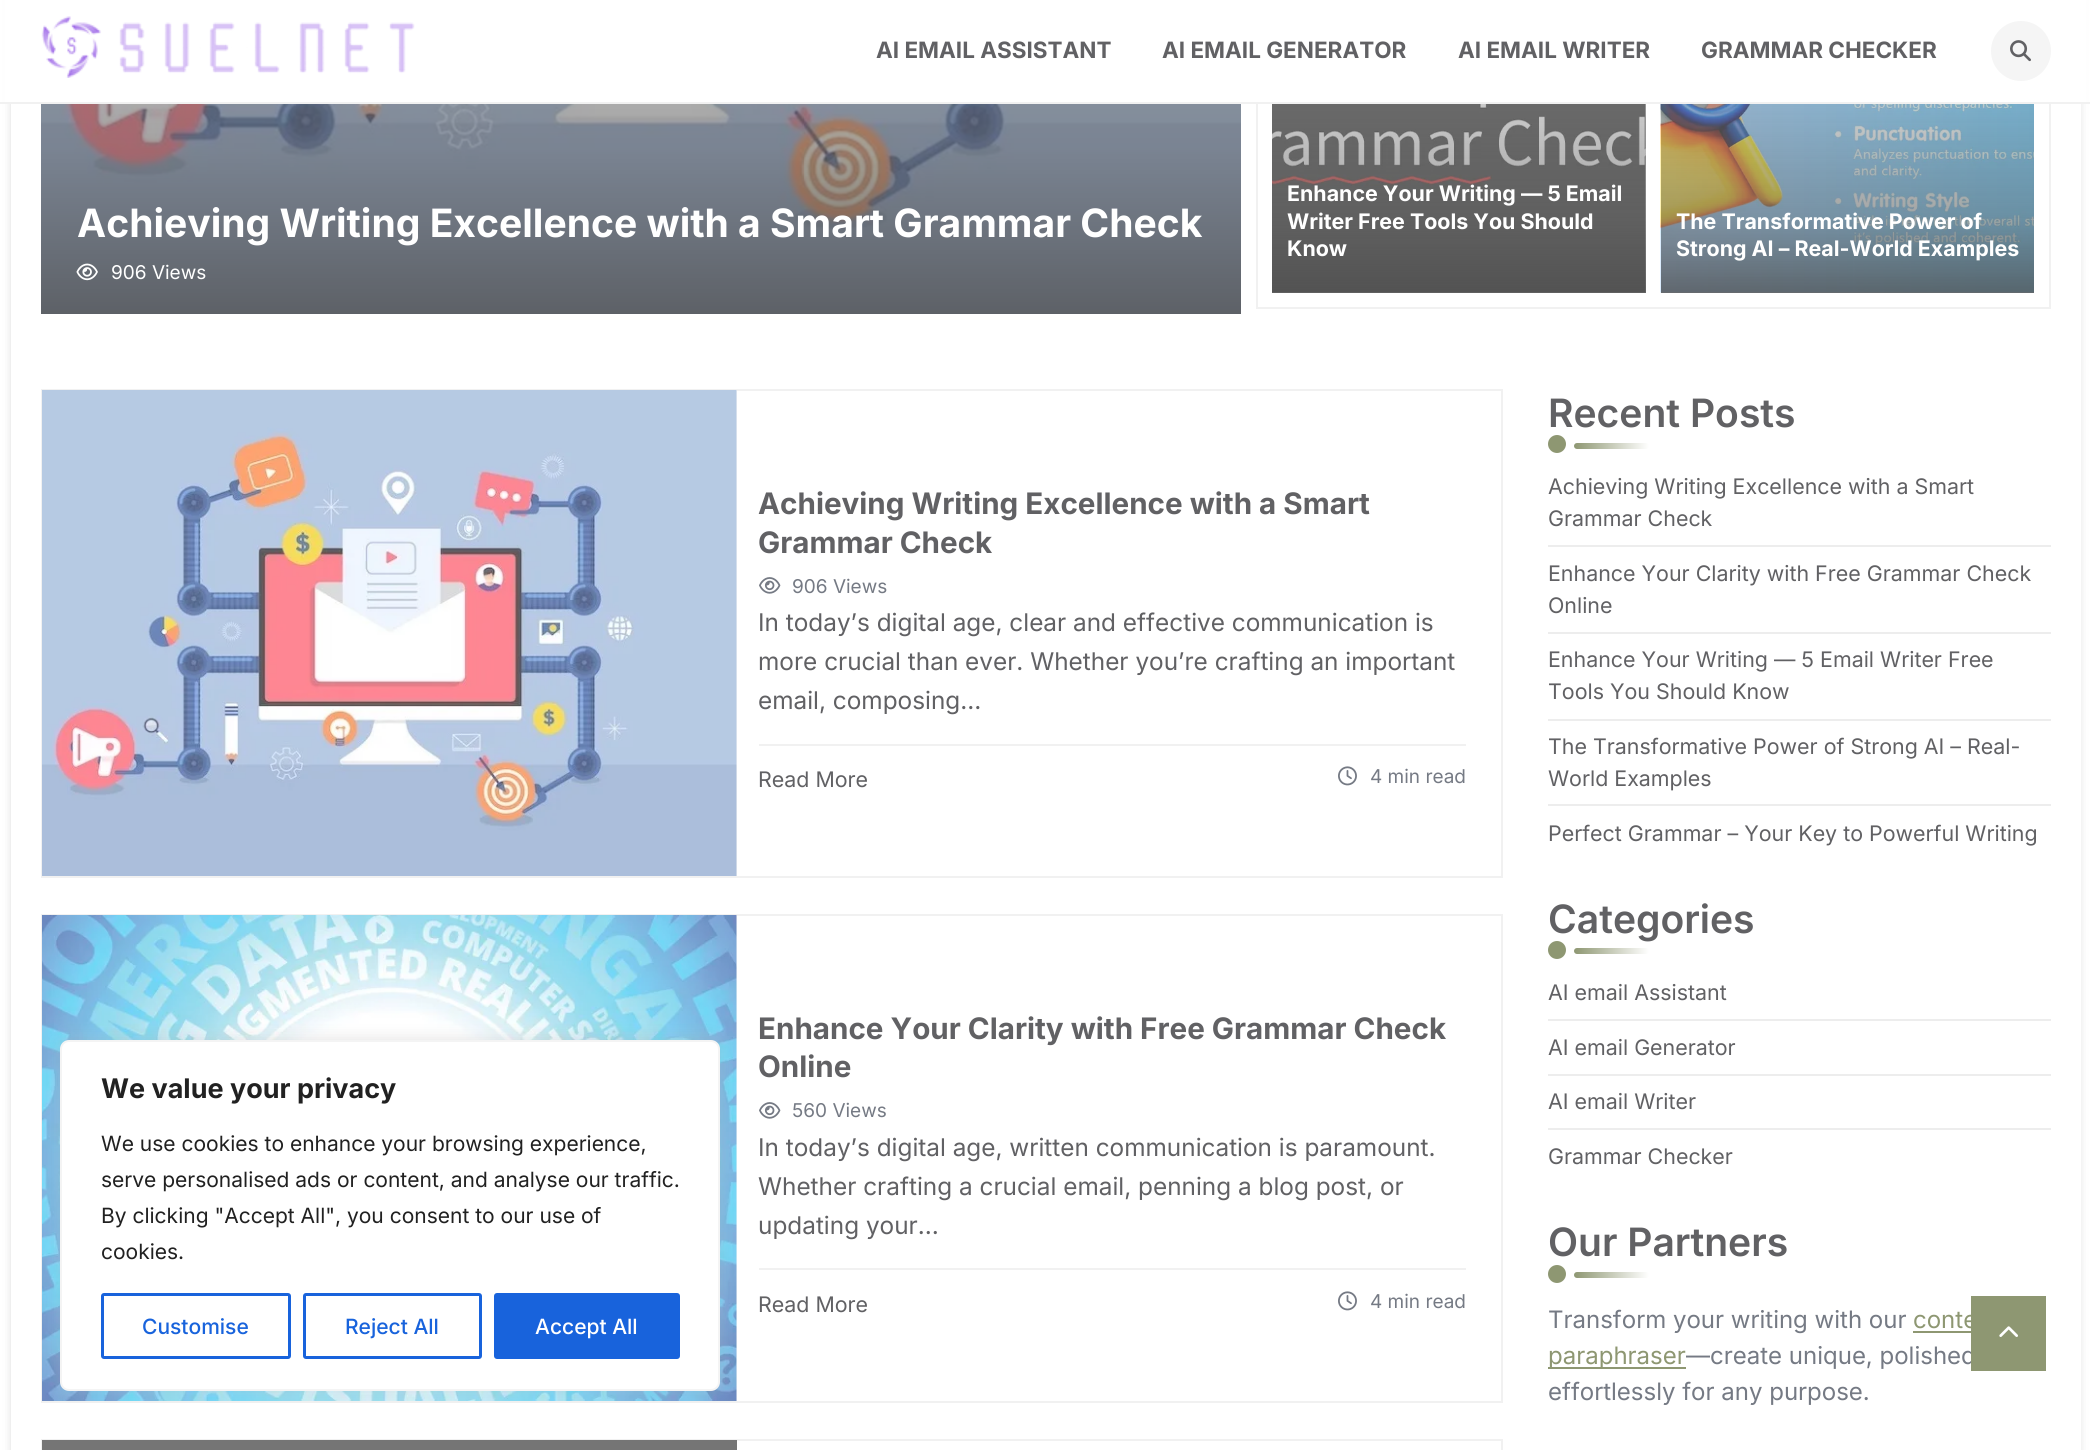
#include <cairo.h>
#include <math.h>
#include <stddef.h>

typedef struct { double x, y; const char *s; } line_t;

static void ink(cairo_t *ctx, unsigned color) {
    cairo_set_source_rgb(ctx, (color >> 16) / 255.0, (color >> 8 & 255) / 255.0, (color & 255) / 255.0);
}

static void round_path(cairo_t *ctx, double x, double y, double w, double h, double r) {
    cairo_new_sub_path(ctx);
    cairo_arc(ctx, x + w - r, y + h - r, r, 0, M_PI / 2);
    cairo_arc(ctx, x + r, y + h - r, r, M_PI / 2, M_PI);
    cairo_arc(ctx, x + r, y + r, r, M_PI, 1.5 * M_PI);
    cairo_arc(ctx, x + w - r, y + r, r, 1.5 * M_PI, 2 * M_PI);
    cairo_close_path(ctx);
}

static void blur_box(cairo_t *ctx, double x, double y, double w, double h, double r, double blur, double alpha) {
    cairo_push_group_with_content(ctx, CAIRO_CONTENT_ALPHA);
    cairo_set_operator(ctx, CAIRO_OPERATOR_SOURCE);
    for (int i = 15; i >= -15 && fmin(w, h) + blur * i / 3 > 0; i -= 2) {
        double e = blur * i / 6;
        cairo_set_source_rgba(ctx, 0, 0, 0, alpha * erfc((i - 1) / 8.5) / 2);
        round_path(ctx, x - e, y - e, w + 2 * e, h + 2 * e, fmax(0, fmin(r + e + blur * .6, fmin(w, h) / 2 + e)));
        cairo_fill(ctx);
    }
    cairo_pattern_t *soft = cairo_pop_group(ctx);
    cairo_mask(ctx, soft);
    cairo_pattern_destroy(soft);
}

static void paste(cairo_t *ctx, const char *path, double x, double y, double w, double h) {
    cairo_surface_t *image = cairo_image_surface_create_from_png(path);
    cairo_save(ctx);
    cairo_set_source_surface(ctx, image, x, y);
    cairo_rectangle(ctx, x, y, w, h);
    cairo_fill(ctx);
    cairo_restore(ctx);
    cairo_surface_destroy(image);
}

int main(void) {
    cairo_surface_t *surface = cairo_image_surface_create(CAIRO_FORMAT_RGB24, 2090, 1450);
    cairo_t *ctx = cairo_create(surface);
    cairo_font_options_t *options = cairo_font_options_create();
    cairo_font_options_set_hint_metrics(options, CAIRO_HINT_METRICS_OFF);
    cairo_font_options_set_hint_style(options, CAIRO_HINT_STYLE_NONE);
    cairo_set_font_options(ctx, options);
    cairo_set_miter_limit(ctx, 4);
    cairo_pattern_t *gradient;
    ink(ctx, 0xFFFFFF);
    cairo_paint(ctx);
    ink(ctx, 0x4A4A4A);
    blur_box(ctx, 21, -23, 2049, 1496, 0, 7.5, 1);
    ink(ctx, 0xFFFFFF);
    cairo_rectangle(ctx, 11, 104, 2070, 1346);
    cairo_fill(ctx);
    cairo_rectangle(ctx, 1257, -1, 793, 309);
    ink(ctx, 0xF1F1F1);
    cairo_stroke(ctx);
    ink(ctx, 0xFFFFFF);
    cairo_rectangle(ctx, 5, 0, 2081, 102);
    cairo_fill(ctx);
    ink(ctx, 0xF1F1F1);
    cairo_rectangle(ctx, 0, 102, 2090, 2);
    cairo_fill(ctx);
    paste(ctx, "media/1.png", 41, 16, 374, 62);
    cairo_select_font_face(ctx, "Inter", CAIRO_FONT_SLANT_NORMAL, CAIRO_FONT_WEIGHT_BOLD);
    cairo_set_font_size(ctx, 22.5);
    ink(ctx, 0x616164);
    {
        static const line_t items[] = {
            {876, 58, "AI EMAIL ASSISTANT"},
            {1162, 58, "AI EMAIL GENERATOR"},
            {1458, 58, "AI EMAIL WRITER"},
            {1701, 58, "GRAMMAR CHECKER"},
        };
        for (size_t i = 0; i < sizeof items / sizeof *items; i++) {
            cairo_move_to(ctx, items[i].x, items[i].y);
            cairo_show_text(ctx, items[i].s);
        }
    }
    ink(ctx, 0xF5F5F5);
    cairo_new_path(ctx);
    cairo_arc(ctx, 2021, 51, 30, 0, 2 * M_PI);
    cairo_fill(ctx);
    paste(ctx, "media/2.png", 2010, 40, 21, 22);
    paste(ctx, "media/3.png", 41, 104, 1200, 210);
    cairo_set_font_size(ctx, 39.05);
    ink(ctx, 0xFFFFFF);
    cairo_move_to(ctx, 77, 237);
    cairo_show_text(ctx, "Achieving Writing Excellence with a Smart Grammar Check");
    paste(ctx, "media/4.png", 76, 263, 22, 18);
    cairo_select_font_face(ctx, "Inter", CAIRO_FONT_SLANT_NORMAL, CAIRO_FONT_WEIGHT_NORMAL);
    cairo_set_font_size(ctx, 19);
    cairo_move_to(ctx, 111, 279);
    cairo_show_text(ctx, "906 Views");
    ink(ctx, 0xF5F5F5);
    cairo_rectangle(ctx, 1272, 104, 374, 189);
    cairo_fill(ctx);
    paste(ctx, "media/5.png", 1272, 104, 374, 189);
    gradient = cairo_pattern_create_linear(1459, 293, 1459, -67);
    cairo_pattern_add_color_stop_rgba(gradient, 0, 0.29, 0.29, 0.29, 0.8);
    cairo_pattern_add_color_stop_rgba(gradient, 0.2, 0.29, 0.29, 0.29, 0.5);
    cairo_pattern_add_color_stop_rgba(gradient, 0.5, 0.29, 0.29, 0.29, 0.3);
    cairo_pattern_add_color_stop_rgba(gradient, 1, 0.29, 0.29, 0.29, 0);
    cairo_set_source(ctx, gradient);
    cairo_pattern_destroy(gradient);
    cairo_rectangle(ctx, 1272, 104, 374, 189);
    cairo_fill(ctx);
    cairo_select_font_face(ctx, "Inter", CAIRO_FONT_SLANT_NORMAL, CAIRO_FONT_WEIGHT_BOLD);
    cairo_set_font_size(ctx, 21.4);
    ink(ctx, 0xFFFFFF);
    {
        static const line_t items[] = {
            {1287, 201, "Enhance Your Writing — 5 Email"},
            {1287, 229, "Writer Free Tools You Should"},
            {1287, 256, "Know"},
        };
        for (size_t i = 0; i < sizeof items / sizeof *items; i++) {
            cairo_move_to(ctx, items[i].x, items[i].y);
            cairo_show_text(ctx, items[i].s);
        }
    }
    ink(ctx, 0xF5F5F5);
    cairo_rectangle(ctx, 1661, 292, 373, 1);
    cairo_fill(ctx);
    paste(ctx, "media/6.png", 1660, 104, 374, 189);
    gradient = cairo_pattern_create_linear(1847, 293, 1847, -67);
    cairo_pattern_add_color_stop_rgba(gradient, 0, 0.29, 0.29, 0.29, 0.8);
    cairo_pattern_add_color_stop_rgba(gradient, 0.2, 0.29, 0.29, 0.29, 0.5);
    cairo_pattern_add_color_stop_rgba(gradient, 0.5, 0.29, 0.29, 0.29, 0.3);
    cairo_pattern_add_color_stop_rgba(gradient, 1, 0.29, 0.29, 0.29, 0);
    cairo_set_source(ctx, gradient);
    cairo_pattern_destroy(gradient);
    cairo_rectangle(ctx, 1661, 104, 373, 189);
    cairo_fill(ctx);
    ink(ctx, 0xFFFFFF);
    cairo_move_to(ctx, 1676, 229);
    cairo_show_text(ctx, "The Transformative Power of");
    cairo_move_to(ctx, 1676, 256);
    cairo_show_text(ctx, "Strong AI – Real-World Examples");
    cairo_rectangle(ctx, 42, 390, 1460, 487);
    ink(ctx, 0xF1F1F1);
    cairo_stroke(ctx);
    ink(ctx, 0xF5F5F5);
    cairo_rectangle(ctx, 736, 390, 1, 486);
    cairo_fill(ctx);
    paste(ctx, "media/7.png", 42, 390, 695, 486);
    cairo_set_font_size(ctx, 29.6);
    ink(ctx, 0x616164);
    cairo_move_to(ctx, 758, 514);
    cairo_show_text(ctx, "Achieving Writing Excellence with a Smart");
    cairo_move_to(ctx, 758, 553);
    cairo_show_text(ctx, "Grammar Check");
    paste(ctx, "media/8.png", 759, 577, 22, 17);
    cairo_select_font_face(ctx, "Inter", CAIRO_FONT_SLANT_NORMAL, CAIRO_FONT_WEIGHT_NORMAL);
    cairo_set_font_size(ctx, 19);
    ink(ctx, 0x757A84);
    cairo_move_to(ctx, 792, 593);
    cairo_show_text(ctx, "906 Views");
    cairo_set_font_size(ctx, 24.35);
    ink(ctx, 0x616164);
    {
        static const line_t items[] = {
            {758, 631, "In today’s digital age, clear and effective communication is"},
            {758, 670, "more crucial than ever. Whether you’re crafting an important"},
            {758, 709, "email, composing…"},
        };
        for (size_t i = 0; i < sizeof items / sizeof *items; i++) {
            cairo_move_to(ctx, items[i].x, items[i].y);
            cairo_show_text(ctx, items[i].s);
        }
    }
    ink(ctx, 0xF1F1F1);
    cairo_rectangle(ctx, 759, 744, 707, 2);
    cairo_fill(ctx);
    cairo_set_font_size(ctx, 21.4);
    ink(ctx, 0x616164);
    cairo_move_to(ctx, 758, 787);
    cairo_show_text(ctx, "Read More");
    paste(ctx, "media/9.png", 1338, 766, 19, 20);
    cairo_set_font_size(ctx, 19);
    ink(ctx, 0x757A84);
    cairo_move_to(ctx, 1370, 783);
    cairo_show_text(ctx, "4 min read");
    cairo_rectangle(ctx, 42, 915, 1460, 487);
    ink(ctx, 0xF1F1F1);
    cairo_stroke(ctx);
    ink(ctx, 0xF5F5F5);
    cairo_rectangle(ctx, 736, 915, 1, 486);
    cairo_fill(ctx);
    paste(ctx, "media/10.png", 42, 915, 695, 486);
    cairo_select_font_face(ctx, "Inter", CAIRO_FONT_SLANT_NORMAL, CAIRO_FONT_WEIGHT_BOLD);
    cairo_set_font_size(ctx, 29.6);
    ink(ctx, 0x616164);
    cairo_move_to(ctx, 758, 1039);
    cairo_show_text(ctx, "Enhance Your Clarity with Free Grammar Check");
    cairo_move_to(ctx, 758, 1077);
    cairo_show_text(ctx, "Online");
    paste(ctx, "media/8.png", 759, 1102, 22, 17);
    cairo_select_font_face(ctx, "Inter", CAIRO_FONT_SLANT_NORMAL, CAIRO_FONT_WEIGHT_NORMAL);
    cairo_set_font_size(ctx, 19);
    ink(ctx, 0x757A84);
    cairo_move_to(ctx, 792, 1117);
    cairo_show_text(ctx, "560 Views");
    cairo_set_font_size(ctx, 24.35);
    ink(ctx, 0x616164);
    {
        static const line_t items[] = {
            {758, 1156, "In today’s digital age, written communication is paramount."},
            {758, 1195, "Whether crafting a crucial email, penning a blog post, or"},
            {758, 1234, "updating your…"},
        };
        for (size_t i = 0; i < sizeof items / sizeof *items; i++) {
            cairo_move_to(ctx, items[i].x, items[i].y);
            cairo_show_text(ctx, items[i].s);
        }
    }
    ink(ctx, 0xF1F1F1);
    cairo_rectangle(ctx, 759, 1268, 707, 2);
    cairo_fill(ctx);
    cairo_set_font_size(ctx, 21.4);
    ink(ctx, 0x616164);
    cairo_move_to(ctx, 758, 1312);
    cairo_show_text(ctx, "Read More");
    paste(ctx, "media/9.png", 1338, 1291, 19, 20);
    cairo_set_font_size(ctx, 19);
    ink(ctx, 0x757A84);
    cairo_move_to(ctx, 1370, 1308);
    cairo_show_text(ctx, "4 min read");
    cairo_rectangle(ctx, 42, 1440, 1460, 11);
    ink(ctx, 0xF1F1F1);
    cairo_stroke(ctx);
    ink(ctx, 0x757575);
    cairo_rectangle(ctx, 42, 1440, 695, 10);
    cairo_fill(ctx);
    cairo_select_font_face(ctx, "Inter SemiBold", CAIRO_FONT_SLANT_NORMAL, CAIRO_FONT_WEIGHT_NORMAL);
    cairo_set_font_size(ctx, 39.05);
    ink(ctx, 0x616164);
    cairo_move_to(ctx, 1548, 427);
    cairo_show_text(ctx, "Recent Posts");
    ink(ctx, 0x8E9772);
    cairo_new_path(ctx);
    cairo_arc(ctx, 1557, 444, 9, 0, 2 * M_PI);
    cairo_fill(ctx);
    gradient = cairo_pattern_create_linear(1574, 446, 1649, 446);
    cairo_pattern_add_color_stop_rgba(gradient, 0, 0.557, 0.592, 0.447, 1);
    cairo_pattern_add_color_stop_rgba(gradient, 1, 1, 1, 1, 1);
    cairo_set_source(ctx, gradient);
    cairo_pattern_destroy(gradient);
    round_path(ctx, 1574, 443, 75, 6, 3);
    cairo_fill(ctx);
    ink(ctx, 0xEDEDED);
    cairo_rectangle(ctx, 1548, 545, 503, 2);
    cairo_fill(ctx);
    cairo_select_font_face(ctx, "Inter", CAIRO_FONT_SLANT_NORMAL, CAIRO_FONT_WEIGHT_NORMAL);
    cairo_set_font_size(ctx, 21.4);
    ink(ctx, 0x616164);
    cairo_move_to(ctx, 1548, 494);
    cairo_show_text(ctx, "Achieving Writing Excellence with a Smart");
    cairo_move_to(ctx, 1548, 526);
    cairo_show_text(ctx, "Grammar Check");
    ink(ctx, 0xEDEDED);
    cairo_rectangle(ctx, 1548, 632, 503, 2);
    cairo_fill(ctx);
    ink(ctx, 0x616164);
    cairo_move_to(ctx, 1548, 581);
    cairo_show_text(ctx, "Enhance Your Clarity with Free Grammar Check");
    cairo_move_to(ctx, 1548, 613);
    cairo_show_text(ctx, "Online");
    ink(ctx, 0xEDEDED);
    cairo_rectangle(ctx, 1548, 719, 503, 2);
    cairo_fill(ctx);
    ink(ctx, 0x616164);
    cairo_move_to(ctx, 1548, 667);
    cairo_show_text(ctx, "Enhance Your Writing — 5 Email Writer Free");
    cairo_move_to(ctx, 1548, 699);
    cairo_show_text(ctx, "Tools You Should Know");
    ink(ctx, 0xEDEDED);
    cairo_rectangle(ctx, 1548, 804, 503, 2);
    cairo_fill(ctx);
    ink(ctx, 0x616164);
    {
        static const line_t items[] = {
            {1548, 754, "The Transformative Power of Strong AI – Real-"},
            {1548, 786, "World Examples"},
            {1548, 841, "Perfect Grammar – Your Key to Powerful Writing"},
        };
        for (size_t i = 0; i < sizeof items / sizeof *items; i++) {
            cairo_move_to(ctx, items[i].x, items[i].y);
            cairo_show_text(ctx, items[i].s);
        }
    }
    cairo_select_font_face(ctx, "Inter SemiBold", CAIRO_FONT_SLANT_NORMAL, CAIRO_FONT_WEIGHT_NORMAL);
    cairo_set_font_size(ctx, 39.05);
    cairo_move_to(ctx, 1548, 933);
    cairo_show_text(ctx, "Categories");
    ink(ctx, 0x8E9772);
    cairo_new_path(ctx);
    cairo_arc(ctx, 1557, 950, 9, 0, 2 * M_PI);
    cairo_fill(ctx);
    gradient = cairo_pattern_create_linear(1574, 951, 1649, 951);
    cairo_pattern_add_color_stop_rgba(gradient, 0, 0.557, 0.592, 0.447, 1);
    cairo_pattern_add_color_stop_rgba(gradient, 1, 1, 1, 1, 1);
    cairo_set_source(ctx, gradient);
    cairo_pattern_destroy(gradient);
    round_path(ctx, 1574, 948, 75, 6, 3);
    cairo_fill(ctx);
    ink(ctx, 0xEDEDED);
    cairo_rectangle(ctx, 1548, 1019, 503, 2);
    cairo_fill(ctx);
    cairo_select_font_face(ctx, "Inter", CAIRO_FONT_SLANT_NORMAL, CAIRO_FONT_WEIGHT_NORMAL);
    cairo_set_font_size(ctx, 21.4);
    ink(ctx, 0x616164);
    cairo_move_to(ctx, 1548, 1000);
    cairo_show_text(ctx, "AI email Assistant");
    ink(ctx, 0xEDEDED);
    cairo_rectangle(ctx, 1548, 1074, 503, 2);
    cairo_fill(ctx);
    ink(ctx, 0x616164);
    cairo_move_to(ctx, 1548, 1055);
    cairo_show_text(ctx, "AI email Generator");
    ink(ctx, 0xEDEDED);
    cairo_rectangle(ctx, 1548, 1128, 503, 2);
    cairo_fill(ctx);
    ink(ctx, 0x616164);
    cairo_move_to(ctx, 1548, 1109);
    cairo_show_text(ctx, "AI email Writer");
    cairo_move_to(ctx, 1548, 1164);
    cairo_show_text(ctx, "Grammar Checker");
    cairo_select_font_face(ctx, "Inter SemiBold", CAIRO_FONT_SLANT_NORMAL, CAIRO_FONT_WEIGHT_NORMAL);
    cairo_set_font_size(ctx, 39.05);
    cairo_move_to(ctx, 1548, 1256);
    cairo_show_text(ctx, "Our Partners");
    ink(ctx, 0x8E9772);
    cairo_new_path(ctx);
    cairo_arc(ctx, 1557, 1274, 9, 0, 2 * M_PI);
    cairo_fill(ctx);
    gradient = cairo_pattern_create_linear(1574, 1275, 1649, 1275);
    cairo_pattern_add_color_stop_rgba(gradient, 0, 0.557, 0.592, 0.447, 1);
    cairo_pattern_add_color_stop_rgba(gradient, 1, 1, 1, 1, 1);
    cairo_set_source(ctx, gradient);
    cairo_pattern_destroy(gradient);
    round_path(ctx, 1574, 1272, 75, 6, 3);
    cairo_fill(ctx);
    cairo_select_font_face(ctx, "Inter", CAIRO_FONT_SLANT_NORMAL, CAIRO_FONT_WEIGHT_NORMAL);
    cairo_set_font_size(ctx, 24);
    ink(ctx, 0x757A84);
    cairo_move_to(ctx, 1548, 1328);
    cairo_show_text(ctx, "Transform your writing with our");
    ink(ctx, 0x8E9772);
    cairo_move_to(ctx, 1913, 1328);
    cairo_show_text(ctx, "conte");
    cairo_rectangle(ctx, 1913, 1331, 58, 2);
    cairo_fill(ctx);
    cairo_rectangle(ctx, 1548, 1367, 138, 2);
    cairo_fill(ctx);
    cairo_move_to(ctx, 1548, 1364);
    cairo_show_text(ctx, "paraphraser");
    ink(ctx, 0x757A84);
    cairo_move_to(ctx, 1686, 1364);
    cairo_show_text(ctx, "—create unique, polished");
    cairo_move_to(ctx, 1548, 1400);
    cairo_show_text(ctx, "effortlessly for any purpose.");
    ink(ctx, 0x8E9772);
    cairo_rectangle(ctx, 1971, 1296, 75, 75);
    cairo_fill(ctx);
    paste(ctx, "media/11.png", 1999, 1326, 19, 11);
    ink(ctx, 0xACABAB);
    blur_box(ctx, 60, 1038, 660, 351, 9, 7.5, 0.3);
    ink(ctx, 0xFFFFFF);
    round_path(ctx, 61, 1041, 658, 349, 8);
    cairo_fill_preserve(ctx);
    ink(ctx, 0xF4F4F4);
    cairo_stroke(ctx);
    cairo_select_font_face(ctx, "Inter", CAIRO_FONT_SLANT_NORMAL, CAIRO_FONT_WEIGHT_BOLD);
    cairo_set_font_size(ctx, 27);
    ink(ctx, 0x212121);
    cairo_move_to(ctx, 101, 1098);
    cairo_show_text(ctx, "We value your privacy");
    cairo_select_font_face(ctx, "Inter", CAIRO_FONT_SLANT_NORMAL, CAIRO_FONT_WEIGHT_NORMAL);
    cairo_set_font_size(ctx, 21);
    {
        static const line_t items[] = {
            {101, 1151, "We use cookies to enhance your browsing experience,"},
            {101, 1187, "serve personalised ads or content, and analyse our traffic."},
            {101, 1223, "By clicking \"Accept All\", you consent to our use of"},
            {101, 1259, "cookies."},
        };
        for (size_t i = 0; i < sizeof items / sizeof *items; i++) {
            cairo_move_to(ctx, items[i].x, items[i].y);
            cairo_show_text(ctx, items[i].s);
        }
    }
    round_path(ctx, 102.5, 1294.5, 187, 63, 1.5);
    ink(ctx, 0x1863DC);
    cairo_set_line_width(ctx, 3);
    cairo_stroke(ctx);
    cairo_select_font_face(ctx, "Inter Medium", CAIRO_FONT_SLANT_NORMAL, CAIRO_FONT_WEIGHT_NORMAL);
    cairo_move_to(ctx, 142, 1334);
    cairo_show_text(ctx, "Customise");
    round_path(ctx, 304.5, 1294.5, 176, 63, 1.5);
    cairo_stroke(ctx);
    cairo_move_to(ctx, 345, 1334);
    cairo_show_text(ctx, "Reject All");
    round_path(ctx, 495.5, 1294.5, 183, 63, 1.5);
    cairo_fill_preserve(ctx);
    cairo_stroke(ctx);
    ink(ctx, 0xFFFFFF);
    cairo_move_to(ctx, 535, 1334);
    cairo_show_text(ctx, "Accept All");
    cairo_surface_write_to_png(surface, "image.png");
    cairo_font_options_destroy(options);
    cairo_destroy(ctx);
    cairo_surface_destroy(surface);
    return 0;
}
